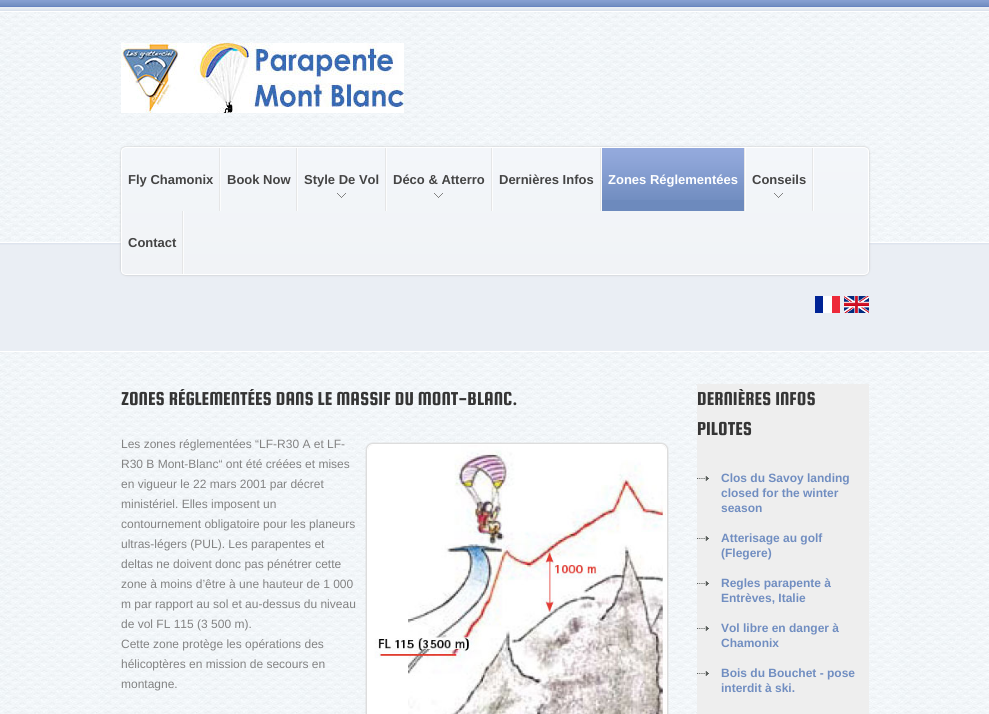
#include <cairo.h>
#include <math.h>
#include <stddef.h>

typedef struct { double x, y; const char *s; } line_t;

static void ink(cairo_t *ctx, unsigned color) {
    cairo_set_source_rgb(ctx, (color >> 16) / 255.0, (color >> 8 & 255) / 255.0, (color & 255) / 255.0);
}

static void round_path(cairo_t *ctx, double x, double y, double w, double h, double r) {
    cairo_new_sub_path(ctx);
    cairo_arc(ctx, x + w - r, y + h - r, r, 0, M_PI / 2);
    cairo_arc(ctx, x + r, y + h - r, r, M_PI / 2, M_PI);
    cairo_arc(ctx, x + r, y + r, r, M_PI, 1.5 * M_PI);
    cairo_arc(ctx, x + w - r, y + r, r, 1.5 * M_PI, 2 * M_PI);
    cairo_close_path(ctx);
}

static void blur_box(cairo_t *ctx, double x, double y, double w, double h, double r, double blur, double alpha) {
    cairo_push_group_with_content(ctx, CAIRO_CONTENT_ALPHA);
    cairo_set_operator(ctx, CAIRO_OPERATOR_SOURCE);
    for (int i = 15; i >= -15 && fmin(w, h) + blur * i / 3 > 0; i -= 2) {
        double e = blur * i / 6;
        cairo_set_source_rgba(ctx, 0, 0, 0, alpha * erfc((i - 1) / 8.5) / 2);
        round_path(ctx, x - e, y - e, w + 2 * e, h + 2 * e, fmax(0, fmin(r + e + blur * .6, fmin(w, h) / 2 + e)));
        cairo_fill(ctx);
    }
    cairo_pattern_t *soft = cairo_pop_group(ctx);
    cairo_mask(ctx, soft);
    cairo_pattern_destroy(soft);
}

static void paste(cairo_t *ctx, const char *path, double x, double y, double w, double h) {
    cairo_surface_t *image = cairo_image_surface_create_from_png(path);
    cairo_save(ctx);
    cairo_set_source_surface(ctx, image, x, y);
    cairo_rectangle(ctx, x, y, w, h);
    cairo_fill(ctx);
    cairo_restore(ctx);
    cairo_surface_destroy(image);
}

int main(void) {
    cairo_surface_t *surface = cairo_image_surface_create(CAIRO_FORMAT_RGB24, 989, 714);
    cairo_t *ctx = cairo_create(surface);
    cairo_font_options_t *options = cairo_font_options_create();
    cairo_font_options_set_hint_metrics(options, CAIRO_HINT_METRICS_OFF);
    cairo_font_options_set_hint_style(options, CAIRO_HINT_STYLE_NONE);
    cairo_set_font_options(ctx, options);
    cairo_set_miter_limit(ctx, 4);
    cairo_pattern_t *gradient;
    ink(ctx, 0xFFFFFF);
    cairo_paint(ctx);
    paste(ctx, "media/1.png", 0, 12, 989, 702);
    paste(ctx, "media/2.png", 0, 0, 989, 11);
    paste(ctx, "media/3.png", 121, 43, 283, 70);
    ink(ctx, 0xEAEEF4);
    cairo_rectangle(ctx, 0, 245, 989, 106);
    cairo_fill(ctx);
    paste(ctx, "media/7.png", 0, 243, 989, 2);
    ink(ctx, 0xFFFFFF);
    cairo_rectangle(ctx, 0, 242, 989, 1);
    cairo_fill(ctx);
    ink(ctx, 0xBBBBBB);
    blur_box(ctx, 121, 147, 748, 128, 5, 1, 1);
    cairo_save(ctx);
    round_path(ctx, 121, 147, 748, 128, 5);
    cairo_clip(ctx);
    gradient = cairo_pattern_create_linear(495, 148, 495, 274);
    cairo_pattern_add_color_stop_rgba(gradient, 0, 0.953, 0.965, 0.98, 1);
    cairo_pattern_add_color_stop_rgba(gradient, 1, 0.945, 0.953, 0.965, 1);
    cairo_set_source(ctx, gradient);
    cairo_pattern_destroy(gradient);
    cairo_rectangle(ctx, 121, 148, 748, 126);
    cairo_fill(ctx);
    cairo_restore(ctx);
    round_path(ctx, 121.5, 147.5, 747, 127, 4.5);
    ink(ctx, 0xFFFFFF);
    cairo_set_line_width(ctx, 1);
    cairo_stroke(ctx);
    paste(ctx, "media/4.png", 219, 148, 2, 63);
    cairo_select_font_face(ctx, "Liberation Sans", CAIRO_FONT_SLANT_NORMAL, CAIRO_FONT_WEIGHT_BOLD);
    cairo_set_font_size(ctx, 13);
    ink(ctx, 0x444444);
    cairo_move_to(ctx, 128, 184);
    cairo_show_text(ctx, "Fly Chamonix");
    paste(ctx, "media/4.png", 296, 148, 2, 63);
    cairo_move_to(ctx, 227, 184);
    cairo_show_text(ctx, "Book Now");
    paste(ctx, "media/4.png", 385, 148, 2, 63);
    cairo_move_to(ctx, 304, 184);
    cairo_show_text(ctx, "Style De Vol");
    paste(ctx, "media/5.png", 337, 193, 9, 5);
    paste(ctx, "media/4.png", 491, 148, 2, 63);
    cairo_move_to(ctx, 393, 184);
    cairo_show_text(ctx, "Déco & Atterro");
    paste(ctx, "media/5.png", 434, 193, 9, 5);
    paste(ctx, "media/4.png", 600, 148, 2, 63);
    cairo_move_to(ctx, 499, 184);
    cairo_show_text(ctx, "Dernières Infos");
    paste(ctx, "media/4.png", 744, 148, 2, 63);
    ink(ctx, 0x6D8ABD);
    cairo_rectangle(ctx, 602, 200, 142, 11);
    cairo_fill(ctx);
    paste(ctx, "media/6.png", 602, 148, 142, 52);
    ink(ctx, 0xFFFFFF);
    cairo_move_to(ctx, 608, 184);
    cairo_show_text(ctx, "Zones Réglementées");
    paste(ctx, "media/4.png", 812, 148, 2, 63);
    ink(ctx, 0x444444);
    cairo_move_to(ctx, 752, 184);
    cairo_show_text(ctx, "Conseils");
    paste(ctx, "media/5.png", 774, 193, 9, 5);
    paste(ctx, "media/4.png", 182, 211, 2, 63);
    cairo_move_to(ctx, 128, 247);
    cairo_show_text(ctx, "Contact");
    ink(ctx, 0xFFFFFF);
    cairo_rectangle(ctx, 0, 351, 989, 1);
    cairo_fill(ctx);
    paste(ctx, "media/8.png", 815, 296, 25, 17);
    paste(ctx, "media/9.png", 844, 296, 25, 17);
    cairo_select_font_face(ctx, "Squada One", CAIRO_FONT_SLANT_NORMAL, CAIRO_FONT_WEIGHT_NORMAL);
    cairo_set_font_size(ctx, 20);
    ink(ctx, 0x353535);
    cairo_move_to(ctx, 121, 405);
    cairo_show_text(ctx, "ZONES RÉGLEMENTÉES DANS LE MASSIF DU MONT-BLANC.");
    cairo_select_font_face(ctx, "Liberation Sans", CAIRO_FONT_SLANT_NORMAL, CAIRO_FONT_WEIGHT_NORMAL);
    cairo_set_font_size(ctx, 12);
    ink(ctx, 0x828282);
    cairo_move_to(ctx, 121, 448);
    cairo_show_text(ctx, "Les zones réglementées “LF-R30 A et LF-");
    ink(ctx, 0xDDDDDD);
    blur_box(ctx, 368, 445, 300, 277, 6, 0.5, 1);
    blur_box(ctx, 368, 443, 300, 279, 6, 0.5, 1);
    blur_box(ctx, 366, 445, 300, 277, 6, 0.5, 1);
    blur_box(ctx, 366, 443, 300, 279, 6, 0.5, 1);
    round_path(ctx, 367.5, 444.5, 299, 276, 5.5);
    ink(ctx, 0xFFFFFF);
    cairo_stroke(ctx);
    paste(ctx, "media/10.png", 368, 445, 298, 269);
    ink(ctx, 0x828282);
    {
        static const line_t items[] = {
            {121, 468, "R30 B Mont-Blanc“ ont été créées et mises"},
            {121, 488, "en vigueur le 22 mars 2001 par décret"},
            {121, 508, "ministériel. Elles imposent un"},
            {121, 528, "contournement obligatoire pour les planeurs"},
            {121, 548, "ultras-légers (PUL). Les parapentes et"},
            {121, 568, "deltas ne doivent donc pas pénétrer cette"},
            {121, 588, "zone à moins d’être à une hauteur de 1 000"},
            {121, 608, "m par rapport au sol et au-dessus du niveau"},
            {121, 628, "de vol FL 115 (3 500 m)."},
            {121, 648, "Cette zone protège les opérations des"},
            {121, 668, "hélicoptères en mission de secours en"},
            {121, 688, "montagne."},
        };
        for (size_t i = 0; i < sizeof items / sizeof *items; i++) {
            cairo_move_to(ctx, items[i].x, items[i].y);
            cairo_show_text(ctx, items[i].s);
        }
    }
    ink(ctx, 0xEEEEEE);
    cairo_rectangle(ctx, 697, 384, 172, 330);
    cairo_fill(ctx);
    cairo_select_font_face(ctx, "Squada One", CAIRO_FONT_SLANT_NORMAL, CAIRO_FONT_WEIGHT_NORMAL);
    cairo_set_font_size(ctx, 20);
    ink(ctx, 0x353535);
    cairo_move_to(ctx, 697, 405);
    cairo_show_text(ctx, "DERNIÈRES INFOS");
    cairo_move_to(ctx, 697, 435);
    cairo_show_text(ctx, "PILOTES");
    paste(ctx, "media/11.png", 697, 476, 12, 5);
    cairo_select_font_face(ctx, "Liberation Sans", CAIRO_FONT_SLANT_NORMAL, CAIRO_FONT_WEIGHT_BOLD);
    cairo_set_font_size(ctx, 12);
    ink(ctx, 0x718EC1);
    {
        static const line_t items[] = {
            {721, 482, "Clos du Savoy landing"},
            {721, 497, "closed for the winter"},
            {721, 512, "season"},
        };
        for (size_t i = 0; i < sizeof items / sizeof *items; i++) {
            cairo_move_to(ctx, items[i].x, items[i].y);
            cairo_show_text(ctx, items[i].s);
        }
    }
    paste(ctx, "media/11.png", 697, 536, 12, 5);
    cairo_move_to(ctx, 721, 542);
    cairo_show_text(ctx, "Atterisage au golf");
    cairo_move_to(ctx, 721, 557);
    cairo_show_text(ctx, "(Flegere)");
    paste(ctx, "media/11.png", 697, 581, 12, 5);
    cairo_move_to(ctx, 721, 587);
    cairo_show_text(ctx, "Regles parapente à");
    cairo_move_to(ctx, 721, 602);
    cairo_show_text(ctx, "Entrèves, Italie");
    paste(ctx, "media/11.png", 697, 626, 12, 5);
    cairo_move_to(ctx, 721, 632);
    cairo_show_text(ctx, "Vol libre en danger à");
    cairo_move_to(ctx, 721, 647);
    cairo_show_text(ctx, "Chamonix");
    paste(ctx, "media/11.png", 697, 671, 12, 5);
    cairo_move_to(ctx, 721, 677);
    cairo_show_text(ctx, "Bois du Bouchet - pose");
    cairo_move_to(ctx, 721, 692);
    cairo_show_text(ctx, "interdit à ski.");
    cairo_surface_write_to_png(surface, "image.png");
    cairo_font_options_destroy(options);
    cairo_destroy(ctx);
    cairo_surface_destroy(surface);
    return 0;
}
